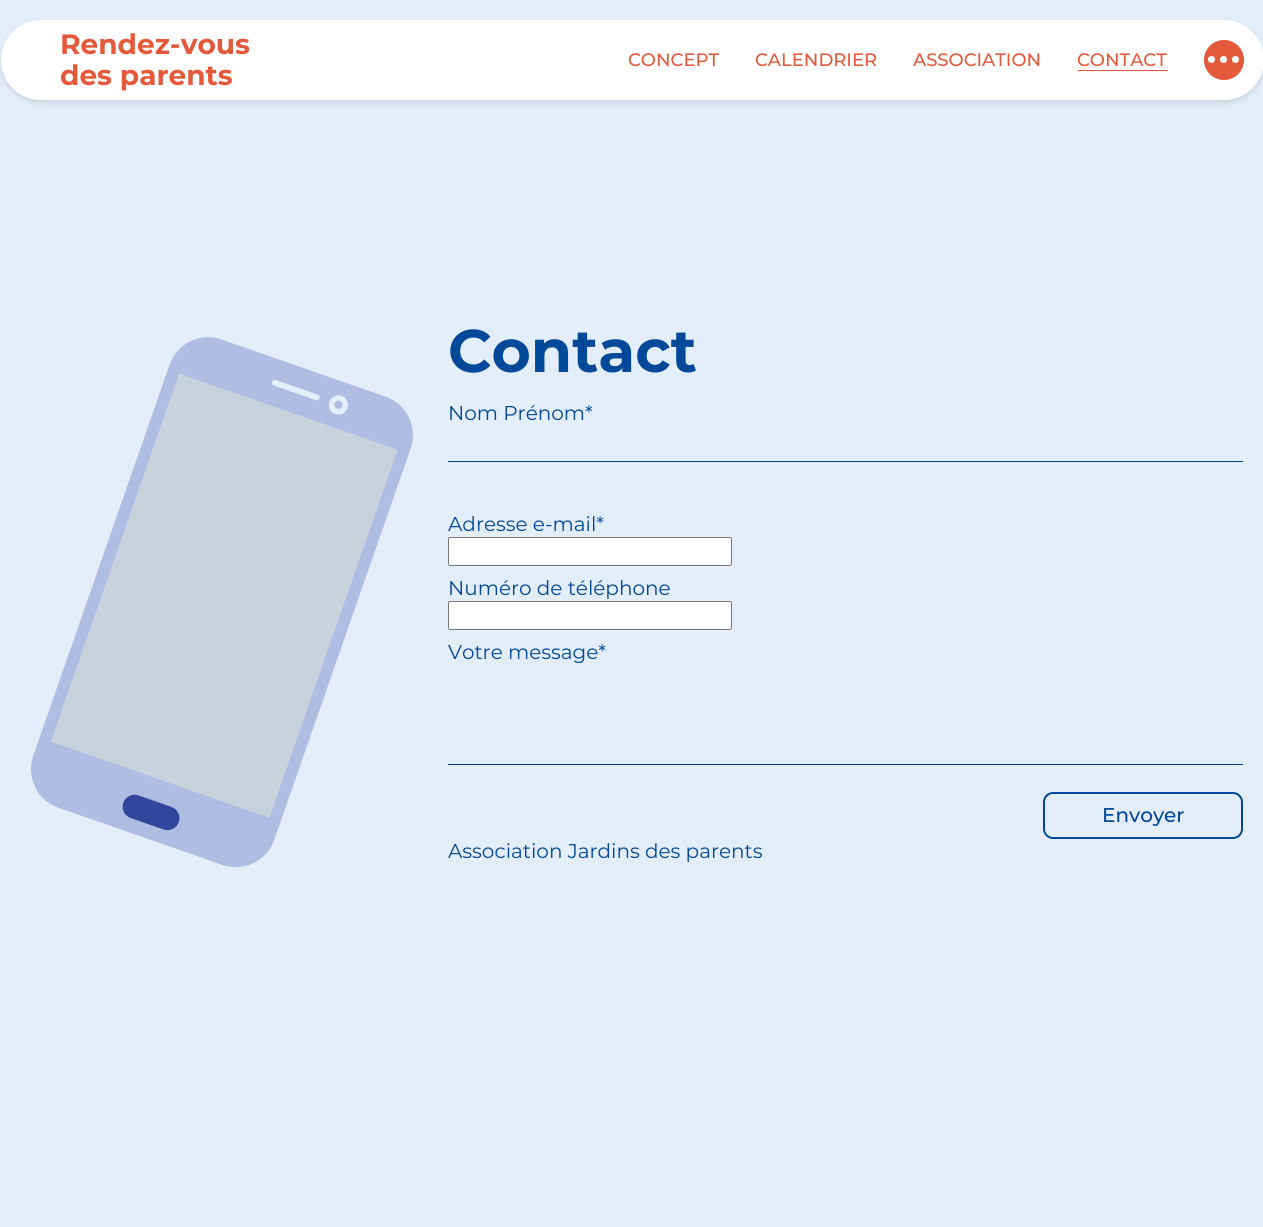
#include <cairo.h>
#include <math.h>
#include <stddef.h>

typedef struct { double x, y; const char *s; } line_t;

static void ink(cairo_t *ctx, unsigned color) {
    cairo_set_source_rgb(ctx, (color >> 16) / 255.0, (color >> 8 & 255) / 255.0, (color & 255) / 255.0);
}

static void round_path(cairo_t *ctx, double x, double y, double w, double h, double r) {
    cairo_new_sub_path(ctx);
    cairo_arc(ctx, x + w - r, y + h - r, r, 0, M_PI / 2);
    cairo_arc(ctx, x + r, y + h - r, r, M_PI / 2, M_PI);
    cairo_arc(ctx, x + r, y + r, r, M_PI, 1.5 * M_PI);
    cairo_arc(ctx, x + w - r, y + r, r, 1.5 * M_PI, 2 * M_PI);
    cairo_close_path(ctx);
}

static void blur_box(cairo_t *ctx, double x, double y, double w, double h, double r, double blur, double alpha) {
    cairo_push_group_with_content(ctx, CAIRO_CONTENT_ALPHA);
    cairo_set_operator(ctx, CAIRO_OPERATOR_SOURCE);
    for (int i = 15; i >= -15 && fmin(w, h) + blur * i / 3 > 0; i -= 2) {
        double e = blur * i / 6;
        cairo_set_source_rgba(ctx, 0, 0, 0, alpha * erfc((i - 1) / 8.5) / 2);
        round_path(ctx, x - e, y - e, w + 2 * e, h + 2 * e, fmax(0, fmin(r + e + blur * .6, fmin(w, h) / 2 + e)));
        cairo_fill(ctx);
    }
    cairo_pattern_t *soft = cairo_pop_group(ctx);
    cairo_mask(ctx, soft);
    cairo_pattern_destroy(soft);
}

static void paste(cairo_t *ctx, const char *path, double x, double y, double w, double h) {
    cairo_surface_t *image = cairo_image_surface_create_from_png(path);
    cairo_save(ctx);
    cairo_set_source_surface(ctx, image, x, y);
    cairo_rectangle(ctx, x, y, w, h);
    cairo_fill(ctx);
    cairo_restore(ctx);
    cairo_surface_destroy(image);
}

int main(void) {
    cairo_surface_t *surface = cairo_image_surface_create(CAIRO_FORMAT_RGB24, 1263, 1227);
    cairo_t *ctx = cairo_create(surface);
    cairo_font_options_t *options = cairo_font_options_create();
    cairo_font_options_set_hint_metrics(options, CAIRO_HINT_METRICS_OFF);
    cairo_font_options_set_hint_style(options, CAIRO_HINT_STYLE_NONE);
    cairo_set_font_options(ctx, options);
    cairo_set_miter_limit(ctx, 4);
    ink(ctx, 0xE4EEFB);
    cairo_paint(ctx);
    cairo_save(ctx);
    cairo_set_fill_rule(ctx, CAIRO_FILL_RULE_EVEN_ODD);
    cairo_new_path(ctx);
    cairo_move_to(ctx, 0, 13);
    cairo_line_to(ctx, 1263, 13);
    cairo_line_to(ctx, 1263, 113);
    cairo_line_to(ctx, 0, 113);
    cairo_close_path(ctx);
    cairo_move_to(ctx, 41, 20);
    cairo_line_to(ctx, 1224, 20);
    cairo_curve_to(ctx, 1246, 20, 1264, 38, 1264, 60);
    cairo_curve_to(ctx, 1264, 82, 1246, 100, 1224, 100);
    cairo_line_to(ctx, 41, 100);
    cairo_curve_to(ctx, 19, 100, 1, 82, 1, 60);
    cairo_curve_to(ctx, 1, 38, 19, 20, 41, 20);
    cairo_close_path(ctx);
    cairo_clip(ctx);
    ink(ctx, 0x383838);
    blur_box(ctx, 1, 23, 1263, 80, 40, 3, 0.16);
    cairo_restore(ctx);
    ink(ctx, 0xFFFFFF);
    round_path(ctx, 1, 20, 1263, 80, 40);
    cairo_fill(ctx);
    cairo_select_font_face(ctx, "Montserrat", CAIRO_FONT_SLANT_NORMAL, CAIRO_FONT_WEIGHT_BOLD);
    cairo_set_font_size(ctx, 28);
    ink(ctx, 0xE4593A);
    cairo_move_to(ctx, 60, 54);
    cairo_show_text(ctx, "Rendez-vous");
    cairo_move_to(ctx, 60, 85);
    cairo_show_text(ctx, "des parents");
    cairo_select_font_face(ctx, "Montserrat Medium", CAIRO_FONT_SLANT_NORMAL, CAIRO_FONT_WEIGHT_NORMAL);
    cairo_set_font_size(ctx, 18);
    {
        static const line_t items[] = {
            {628, 66, "CONCEPT"},
            {755, 66, "CALENDRIER"},
            {913, 66, "ASSOCIATION"},
            {1077, 66, "CONTACT"},
        };
        for (size_t i = 0; i < sizeof items / sizeof *items; i++) {
            cairo_move_to(ctx, items[i].x, items[i].y);
            cairo_show_text(ctx, items[i].s);
        }
    }
    cairo_rectangle(ctx, 1078, 70, 90, 1);
    cairo_fill(ctx);
    cairo_arc(ctx, 1224, 60, 20, 0, 2 * M_PI);
    cairo_fill(ctx);
    ink(ctx, 0xFFFFFF);
    cairo_arc(ctx, 1211.5, 59.5, 3.5, 0, 2 * M_PI);
    cairo_fill(ctx);
    cairo_arc(ctx, 1223.5, 59.5, 3.5, 0, 2 * M_PI);
    cairo_fill(ctx);
    cairo_arc(ctx, 1235.5, 59.5, 3.5, 0, 2 * M_PI);
    cairo_fill(ctx);
    paste(ctx, "media/1.png", 31, 337, 382, 531);
    cairo_select_font_face(ctx, "Montserrat", CAIRO_FONT_SLANT_NORMAL, CAIRO_FONT_WEIGHT_BOLD);
    cairo_set_font_size(ctx, 60);
    ink(ctx, 0x004999);
    cairo_move_to(ctx, 448, 372);
    cairo_show_text(ctx, "Contact");
    cairo_select_font_face(ctx, "Montserrat", CAIRO_FONT_SLANT_NORMAL, CAIRO_FONT_WEIGHT_NORMAL);
    cairo_set_font_size(ctx, 20);
    cairo_move_to(ctx, 448, 420);
    cairo_show_text(ctx, "Nom Prénom*");
    cairo_rectangle(ctx, 448, 461, 795, 1);
    cairo_fill(ctx);
    cairo_move_to(ctx, 448, 531);
    cairo_show_text(ctx, "Adresse e-mail*");
    ink(ctx, 0xFFFFFF);
    round_path(ctx, 448.5, 537.5, 283, 28, 1.5);
    cairo_fill_preserve(ctx);
    ink(ctx, 0x767676);
    cairo_set_line_width(ctx, 1);
    cairo_stroke(ctx);
    ink(ctx, 0x004999);
    cairo_move_to(ctx, 448, 595);
    cairo_show_text(ctx, "Numéro de téléphone");
    ink(ctx, 0xFFFFFF);
    round_path(ctx, 448.5, 601.5, 283, 28, 1.5);
    cairo_fill_preserve(ctx);
    ink(ctx, 0x767676);
    cairo_stroke(ctx);
    ink(ctx, 0x004999);
    cairo_move_to(ctx, 448, 659);
    cairo_show_text(ctx, "Votre message*");
    cairo_rectangle(ctx, 448, 764, 795, 1);
    cairo_fill(ctx);
    round_path(ctx, 1044, 793, 198, 45, 9);
    cairo_set_line_width(ctx, 2);
    cairo_stroke(ctx);
    cairo_select_font_face(ctx, "Montserrat Medium", CAIRO_FONT_SLANT_NORMAL, CAIRO_FONT_WEIGHT_NORMAL);
    cairo_move_to(ctx, 1102, 822);
    cairo_show_text(ctx, "Envoyer");
    cairo_select_font_face(ctx, "Montserrat", CAIRO_FONT_SLANT_NORMAL, CAIRO_FONT_WEIGHT_NORMAL);
    cairo_move_to(ctx, 448, 858);
    cairo_show_text(ctx, "Association Jardins des parents");
    cairo_surface_write_to_png(surface, "image.png");
    cairo_font_options_destroy(options);
    cairo_destroy(ctx);
    cairo_surface_destroy(surface);
    return 0;
}
